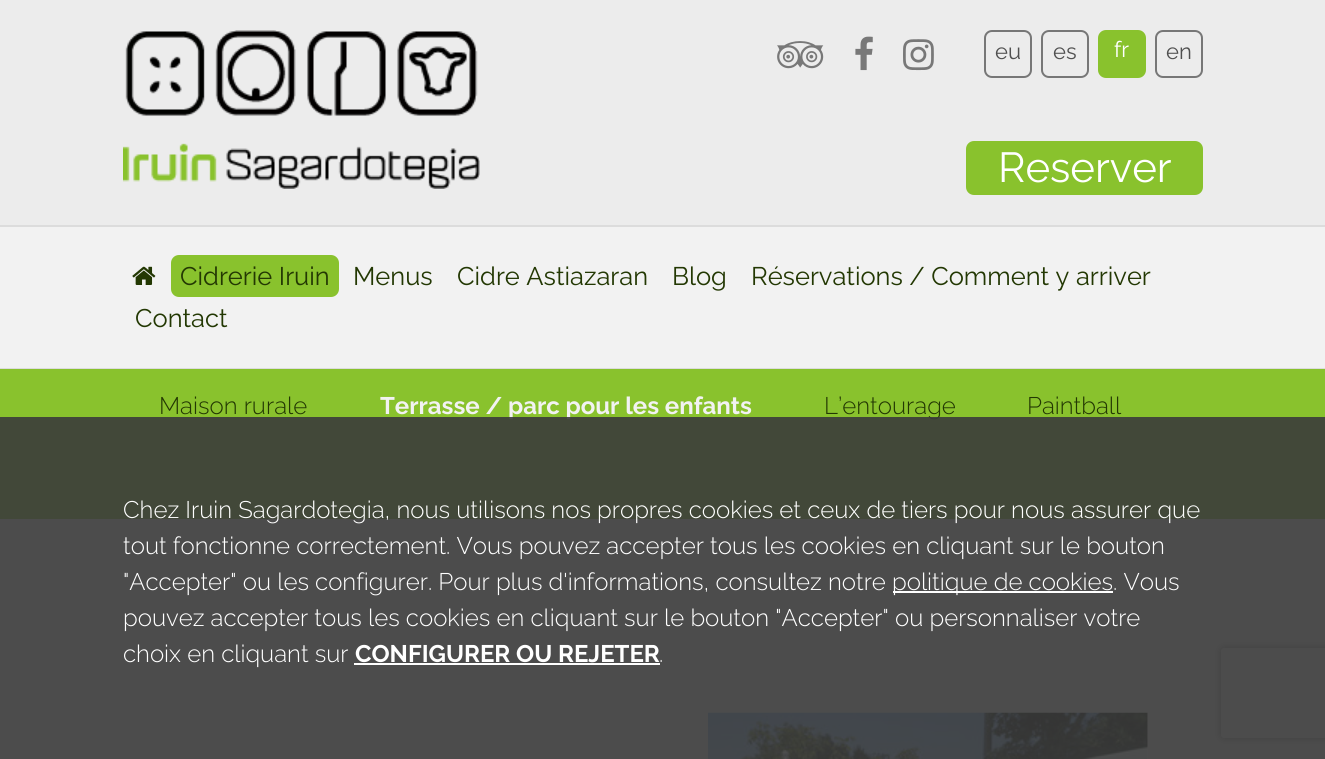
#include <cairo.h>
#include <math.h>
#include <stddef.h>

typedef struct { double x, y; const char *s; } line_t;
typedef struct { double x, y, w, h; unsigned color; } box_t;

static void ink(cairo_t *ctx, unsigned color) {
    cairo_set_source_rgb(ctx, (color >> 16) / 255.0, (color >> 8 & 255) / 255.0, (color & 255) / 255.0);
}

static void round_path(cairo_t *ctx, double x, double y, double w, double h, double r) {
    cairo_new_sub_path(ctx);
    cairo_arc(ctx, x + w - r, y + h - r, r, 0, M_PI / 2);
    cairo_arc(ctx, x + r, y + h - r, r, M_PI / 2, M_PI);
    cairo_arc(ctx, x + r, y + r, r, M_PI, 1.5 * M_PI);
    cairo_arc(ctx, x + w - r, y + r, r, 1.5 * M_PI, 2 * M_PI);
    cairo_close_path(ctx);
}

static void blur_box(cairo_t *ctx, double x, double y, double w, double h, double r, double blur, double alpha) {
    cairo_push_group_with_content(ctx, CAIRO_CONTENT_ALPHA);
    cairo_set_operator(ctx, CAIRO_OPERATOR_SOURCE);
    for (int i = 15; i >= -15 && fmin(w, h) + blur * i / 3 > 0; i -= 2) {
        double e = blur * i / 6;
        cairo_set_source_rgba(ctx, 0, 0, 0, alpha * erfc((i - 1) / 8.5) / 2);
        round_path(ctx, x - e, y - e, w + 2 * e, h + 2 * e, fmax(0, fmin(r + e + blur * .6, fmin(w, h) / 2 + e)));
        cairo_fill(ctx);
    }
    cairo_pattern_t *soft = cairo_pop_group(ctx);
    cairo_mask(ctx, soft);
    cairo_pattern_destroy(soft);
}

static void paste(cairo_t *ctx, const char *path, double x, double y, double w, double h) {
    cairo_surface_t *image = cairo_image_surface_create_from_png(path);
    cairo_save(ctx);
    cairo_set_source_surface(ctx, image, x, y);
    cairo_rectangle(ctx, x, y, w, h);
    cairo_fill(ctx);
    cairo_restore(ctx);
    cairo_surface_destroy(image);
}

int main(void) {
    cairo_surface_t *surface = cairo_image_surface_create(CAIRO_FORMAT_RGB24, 1325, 759);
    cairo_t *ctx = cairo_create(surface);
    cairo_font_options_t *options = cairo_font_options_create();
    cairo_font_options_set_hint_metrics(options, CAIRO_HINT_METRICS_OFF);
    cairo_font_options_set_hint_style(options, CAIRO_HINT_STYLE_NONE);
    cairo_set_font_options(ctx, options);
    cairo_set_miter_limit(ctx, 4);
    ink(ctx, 0xECECEC);
    cairo_paint(ctx);
    paste(ctx, "media/1.png", 123, 30, 357, 159);
    paste(ctx, "media/2.png", 777, 41, 47, 28);
    paste(ctx, "media/3.png", 855, 36, 18, 35);
    paste(ctx, "media/4.png", 903, 39, 31, 32);
    round_path(ctx, 985, 31, 46, 46, 7);
    ink(ctx, 0x777777);
    cairo_stroke(ctx);
    cairo_select_font_face(ctx, "Raleway", CAIRO_FONT_SLANT_NORMAL, CAIRO_FONT_WEIGHT_NORMAL);
    cairo_set_font_size(ctx, 22);
    ink(ctx, 0x505050);
    cairo_move_to(ctx, 995, 59);
    cairo_show_text(ctx, "eu");
    round_path(ctx, 1042, 31, 46, 46, 7);
    ink(ctx, 0x777777);
    cairo_stroke(ctx);
    ink(ctx, 0x505050);
    cairo_move_to(ctx, 1053, 59);
    cairo_show_text(ctx, "es");
    ink(ctx, 0x89C22D);
    round_path(ctx, 1098, 30, 48, 48, 8);
    cairo_fill(ctx);
    ink(ctx, 0xFFFFFF);
    cairo_move_to(ctx, 1114, 57);
    cairo_show_text(ctx, "fr");
    round_path(ctx, 1156, 31, 46, 46, 7);
    ink(ctx, 0x777777);
    cairo_stroke(ctx);
    ink(ctx, 0x505050);
    cairo_move_to(ctx, 1166, 59);
    cairo_show_text(ctx, "en");
    ink(ctx, 0x89C22D);
    round_path(ctx, 967, 142, 235, 52, 7);
    cairo_fill_preserve(ctx);
    cairo_stroke(ctx);
    cairo_set_font_size(ctx, 42);
    ink(ctx, 0xFFFFFF);
    cairo_move_to(ctx, 998, 182);
    cairo_show_text(ctx, "Reserver");
    {
        static const box_t items[] = {
            {0, 227, 1325, 141, 0xF2F2F2},
            {0, 225, 1325, 2, 0xDCDCDC},
            {0, 368, 1325, 1, 0xDCDCDC},
        };
        for (size_t i = 0; i < sizeof items / sizeof *items; i++) {
            ink(ctx, items[i].color);
            cairo_rectangle(ctx, items[i].x, items[i].y, items[i].w, items[i].h);
            cairo_fill(ctx);
        }
    }
    paste(ctx, "media/5.png", 132, 266, 24, 19);
    ink(ctx, 0x89C22D);
    round_path(ctx, 171, 255, 168, 42, 8);
    cairo_fill(ctx);
    cairo_set_font_size(ctx, 25.5);
    ink(ctx, 0x233803);
    {
        static const line_t items[] = {
            {180, 285, "Cidrerie Iruin"},
            {353, 285, "Menus"},
            {457, 285, "Cidre Astiazaran"},
            {672, 285, "Blog"},
            {751, 285, "Réservations / Comment y arriver"},
            {135, 327, "Contact"},
        };
        for (size_t i = 0; i < sizeof items / sizeof *items; i++) {
            cairo_move_to(ctx, items[i].x, items[i].y);
            cairo_show_text(ctx, items[i].s);
        }
    }
    ink(ctx, 0x89C22D);
    cairo_rectangle(ctx, 0, 369, 1325, 150);
    cairo_fill(ctx);
    cairo_select_font_face(ctx, "Raleway Light", CAIRO_FONT_SLANT_NORMAL, CAIRO_FONT_WEIGHT_NORMAL);
    cairo_set_font_size(ctx, 24);
    ink(ctx, 0x233803);
    cairo_move_to(ctx, 159, 414);
    cairo_show_text(ctx, "Maison rurale");
    cairo_select_font_face(ctx, "Raleway", CAIRO_FONT_SLANT_NORMAL, CAIRO_FONT_WEIGHT_BOLD);
    ink(ctx, 0xF2F2F2);
    cairo_move_to(ctx, 380, 414);
    cairo_show_text(ctx, "Terrasse / parc pour les enfants");
    cairo_select_font_face(ctx, "Raleway Light", CAIRO_FONT_SLANT_NORMAL, CAIRO_FONT_WEIGHT_NORMAL);
    ink(ctx, 0x233803);
    cairo_move_to(ctx, 824, 414);
    cairo_show_text(ctx, "L’entourage");
    cairo_move_to(ctx, 1027, 414);
    cairo_show_text(ctx, "Paintball");
    ink(ctx, 0xFFFFFF);
    cairo_rectangle(ctx, 1147, 713, 1, 46);
    cairo_fill(ctx);
    paste(ctx, "media/6.png", 708, 712, 440, 47);
    cairo_save(ctx);
    cairo_set_fill_rule(ctx, CAIRO_FILL_RULE_EVEN_ODD);
    cairo_new_path(ctx);
    cairo_move_to(ctx, 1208, 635);
    cairo_line_to(ctx, 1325, 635);
    cairo_line_to(ctx, 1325, 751);
    cairo_line_to(ctx, 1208, 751);
    cairo_close_path(ctx);
    cairo_move_to(ctx, 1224, 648);
    cairo_line_to(ctx, 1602, 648);
    cairo_curve_to(ctx, 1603.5, 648, 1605, 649.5, 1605, 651);
    cairo_line_to(ctx, 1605, 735);
    cairo_curve_to(ctx, 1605, 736.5, 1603.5, 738, 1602, 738);
    cairo_line_to(ctx, 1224, 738);
    cairo_curve_to(ctx, 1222.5, 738, 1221, 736.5, 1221, 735);
    cairo_line_to(ctx, 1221, 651);
    cairo_curve_to(ctx, 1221, 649.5, 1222.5, 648, 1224, 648);
    cairo_close_path(ctx);
    cairo_clip(ctx);
    ink(ctx, 0x808080);
    blur_box(ctx, 1221, 648, 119, 90, 3, 4, 1);
    cairo_restore(ctx);
    cairo_set_source_rgba(ctx, 0.231, 0.231, 0.231, 0.9);
    cairo_rectangle(ctx, 0, 417, 1325, 342);
    cairo_fill(ctx);
    ink(ctx, 0xFFFFFF);
    {
        static const line_t items[] = {
            {123, 518, "Chez Iruin Sagardotegia, nous utilisons nos propres cookies et ceux de tiers pour nous assurer que"},
            {123, 554, "tout fonctionne correctement. Vous pouvez accepter tous les cookies en cliquant sur le bouton"},
            {123, 590, "\"Accepter\" ou les configurer. Pour plus d'informations, consultez notre"},
        };
        for (size_t i = 0; i < sizeof items / sizeof *items; i++) {
            cairo_move_to(ctx, items[i].x, items[i].y);
            cairo_show_text(ctx, items[i].s);
        }
    }
    cairo_rectangle(ctx, 893, 591, 220, 2);
    cairo_fill(ctx);
    {
        static const line_t items[] = {
            {892, 590, "politique de cookies. Vous"},
            {123, 626, "pouvez accepter tous les cookies en cliquant sur le bouton \"Accepter\" ou personnaliser votre"},
            {123, 662, "choix en cliquant sur"},
        };
        for (size_t i = 0; i < sizeof items / sizeof *items; i++) {
            cairo_move_to(ctx, items[i].x, items[i].y);
            cairo_show_text(ctx, items[i].s);
        }
    }
    cairo_select_font_face(ctx, "Raleway", CAIRO_FONT_SLANT_NORMAL, CAIRO_FONT_WEIGHT_BOLD);
    cairo_move_to(ctx, 355, 662);
    cairo_show_text(ctx, "CONFIGURER OU REJETER");
    cairo_rectangle(ctx, 354, 663, 306, 2);
    cairo_fill(ctx);
    cairo_select_font_face(ctx, "Raleway Light", CAIRO_FONT_SLANT_NORMAL, CAIRO_FONT_WEIGHT_NORMAL);
    cairo_move_to(ctx, 659, 662);
    cairo_show_text(ctx, ".");
    cairo_surface_write_to_png(surface, "image.png");
    cairo_font_options_destroy(options);
    cairo_destroy(ctx);
    cairo_surface_destroy(surface);
    return 0;
}
